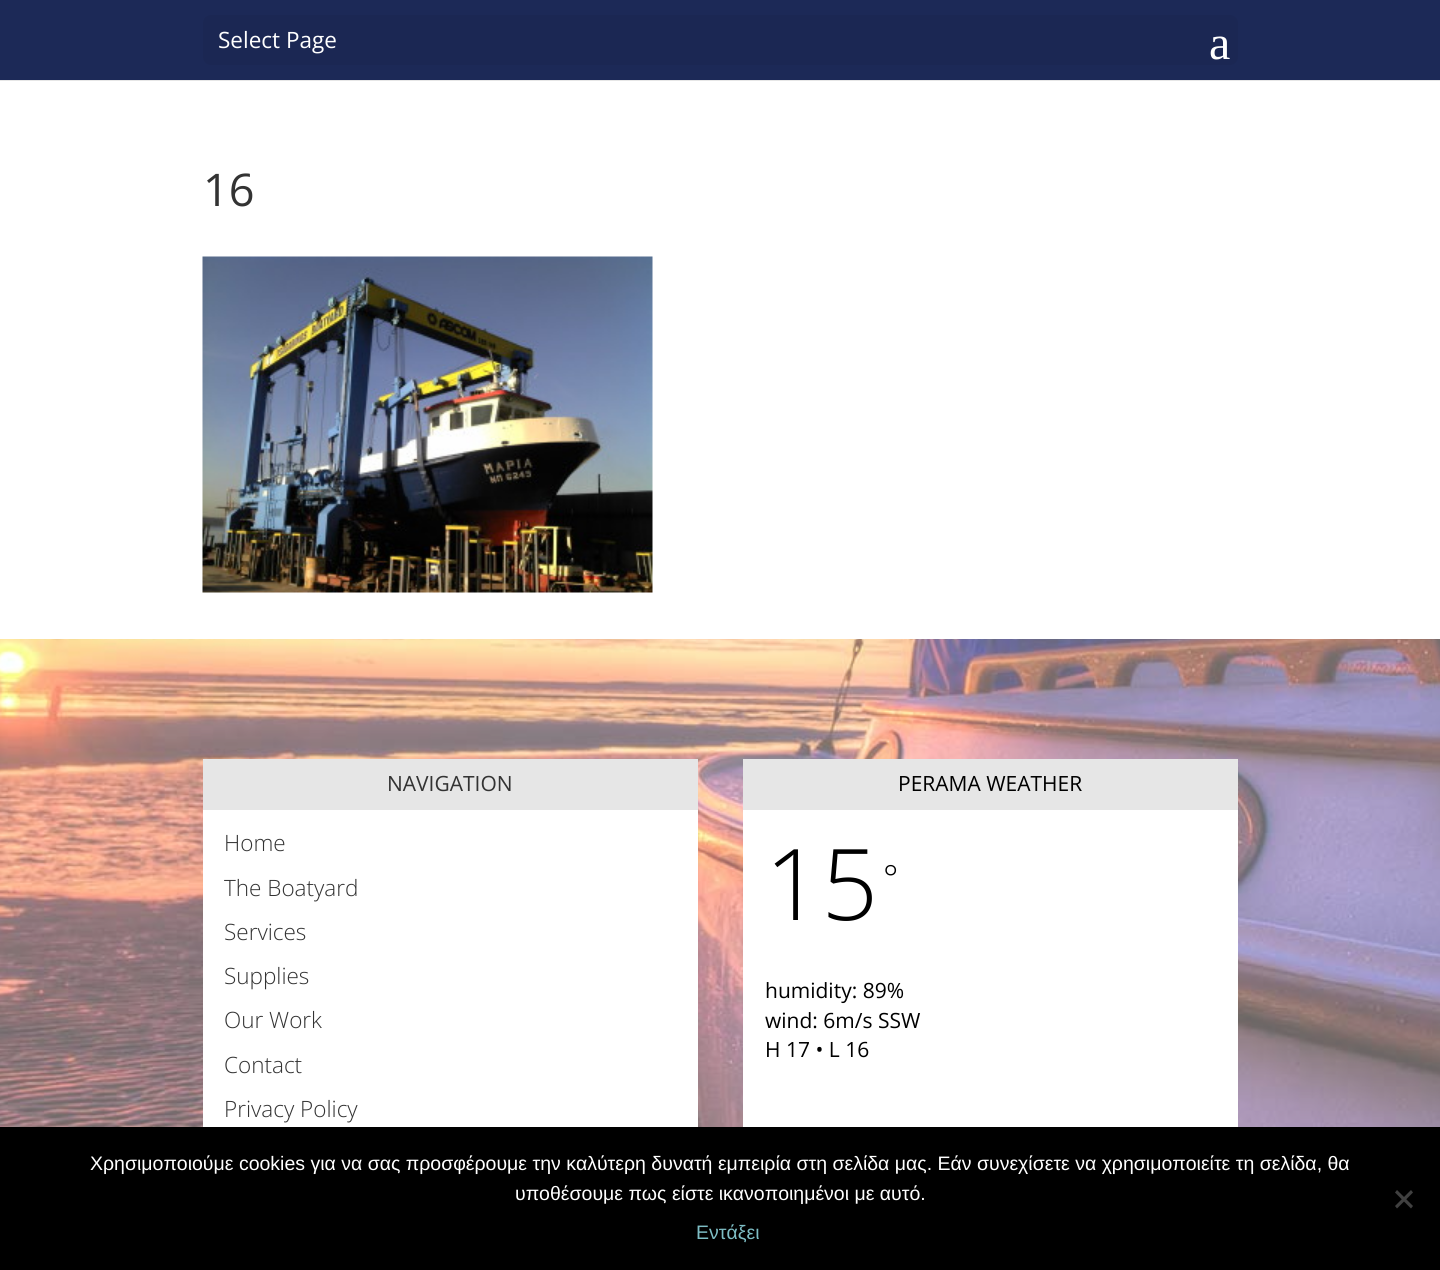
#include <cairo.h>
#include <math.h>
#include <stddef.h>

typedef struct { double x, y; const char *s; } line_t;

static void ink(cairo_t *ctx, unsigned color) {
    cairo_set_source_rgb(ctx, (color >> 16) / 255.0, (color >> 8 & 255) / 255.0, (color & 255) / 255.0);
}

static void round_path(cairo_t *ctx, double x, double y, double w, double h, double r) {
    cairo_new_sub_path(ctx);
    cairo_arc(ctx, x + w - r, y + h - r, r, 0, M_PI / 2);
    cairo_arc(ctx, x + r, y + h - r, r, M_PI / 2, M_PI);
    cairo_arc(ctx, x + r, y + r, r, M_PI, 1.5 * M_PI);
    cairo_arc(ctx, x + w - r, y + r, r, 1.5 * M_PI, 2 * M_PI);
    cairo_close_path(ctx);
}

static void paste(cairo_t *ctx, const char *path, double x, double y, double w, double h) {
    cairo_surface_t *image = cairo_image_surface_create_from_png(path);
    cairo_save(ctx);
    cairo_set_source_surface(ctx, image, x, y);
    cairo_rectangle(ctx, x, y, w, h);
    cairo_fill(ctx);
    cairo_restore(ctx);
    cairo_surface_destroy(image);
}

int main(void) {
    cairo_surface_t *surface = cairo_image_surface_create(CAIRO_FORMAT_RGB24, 1440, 1270);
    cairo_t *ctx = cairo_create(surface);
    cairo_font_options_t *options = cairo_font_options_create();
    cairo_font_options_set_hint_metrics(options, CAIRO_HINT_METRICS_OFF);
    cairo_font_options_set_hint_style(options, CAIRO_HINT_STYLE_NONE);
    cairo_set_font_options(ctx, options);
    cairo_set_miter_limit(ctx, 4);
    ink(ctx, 0xFFFFFF);
    cairo_paint(ctx);
    paste(ctx, "media/1.png", 0, 639, 1440, 488);
    ink(ctx, 0xE6E6E6);
    cairo_rectangle(ctx, 0, 80, 1440, 1);
    cairo_fill(ctx);
    ink(ctx, 0x1C2957);
    cairo_rectangle(ctx, 0, 0, 1440, 80);
    cairo_fill(ctx);
    ink(ctx, 0x1B2753);
    round_path(ctx, 203, 15, 1035, 50, 8);
    cairo_fill(ctx);
    cairo_select_font_face(ctx, "Open Sans", CAIRO_FONT_SLANT_NORMAL, CAIRO_FONT_WEIGHT_NORMAL);
    cairo_set_font_size(ctx, 22.5);
    ink(ctx, 0xFFFFFF);
    cairo_move_to(ctx, 218, 48);
    cairo_show_text(ctx, "Select Page");
    cairo_select_font_face(ctx, "Liberation Serif", CAIRO_FONT_SLANT_NORMAL, CAIRO_FONT_WEIGHT_NORMAL);
    cairo_set_font_size(ctx, 48);
    cairo_move_to(ctx, 1209, 59);
    cairo_show_text(ctx, "a");
    cairo_select_font_face(ctx, "Open Sans", CAIRO_FONT_SLANT_NORMAL, CAIRO_FONT_WEIGHT_NORMAL);
    cairo_set_font_size(ctx, 45);
    ink(ctx, 0x333333);
    cairo_move_to(ctx, 203, 206);
    cairo_show_text(ctx, "16");
    paste(ctx, "media/2.png", 202, 256, 451, 337);
    cairo_set_source_rgba(ctx, 1, 1, 1, 0.4);
    cairo_rectangle(ctx, 0, 639, 1440, 488);
    cairo_fill(ctx);
    ink(ctx, 0xFFFFFF);
    cairo_rectangle(ctx, 203, 810, 495, 317);
    cairo_fill(ctx);
    ink(ctx, 0xE6E6E6);
    cairo_rectangle(ctx, 203, 759, 495, 51);
    cairo_fill(ctx);
    cairo_set_font_size(ctx, 21);
    ink(ctx, 0x333333);
    cairo_move_to(ctx, 387, 791);
    cairo_show_text(ctx, "NAVIGATION");
    cairo_select_font_face(ctx, "Open Sans Light", CAIRO_FONT_SLANT_NORMAL, CAIRO_FONT_WEIGHT_NORMAL);
    cairo_set_font_size(ctx, 22.5);
    {
        static const line_t items[] = {
            {224, 851, "Home"},
            {224, 896, "The Boatyard"},
            {224, 940, "Services"},
            {224, 984, "Supplies"},
            {224, 1028, "Our Work"},
            {224, 1073, "Contact"},
            {224, 1117, "Privacy Policy"},
        };
        for (size_t i = 0; i < sizeof items / sizeof *items; i++) {
            cairo_move_to(ctx, items[i].x, items[i].y);
            cairo_show_text(ctx, items[i].s);
        }
    }
    ink(ctx, 0xFFFFFF);
    cairo_rectangle(ctx, 743, 810, 495, 317);
    cairo_fill(ctx);
    ink(ctx, 0xE6E6E6);
    cairo_rectangle(ctx, 743, 759, 495, 51);
    cairo_fill(ctx);
    cairo_select_font_face(ctx, "Open Sans", CAIRO_FONT_SLANT_NORMAL, CAIRO_FONT_WEIGHT_NORMAL);
    cairo_set_font_size(ctx, 21);
    ink(ctx, 0x000000);
    cairo_move_to(ctx, 898, 791);
    cairo_show_text(ctx, "PERAMA WEATHER");
    cairo_select_font_face(ctx, "Open Sans Light", CAIRO_FONT_SLANT_NORMAL, CAIRO_FONT_WEIGHT_NORMAL);
    cairo_set_font_size(ctx, 99);
    cairo_move_to(ctx, 765, 920);
    cairo_show_text(ctx, "15");
    cairo_set_font_size(ctx, 36);
    cairo_move_to(ctx, 883, 891);
    cairo_show_text(ctx, "°");
    cairo_select_font_face(ctx, "Open Sans", CAIRO_FONT_SLANT_NORMAL, CAIRO_FONT_WEIGHT_NORMAL);
    cairo_set_font_size(ctx, 21);
    {
        static const line_t items[] = {
            {765, 998, "humidity: 89%"},
            {765, 1028, "wind: 6m/s SSW"},
            {765, 1057, "H 17 • L 16"},
        };
        for (size_t i = 0; i < sizeof items / sizeof *items; i++) {
            cairo_move_to(ctx, items[i].x, items[i].y);
            cairo_show_text(ctx, items[i].s);
        }
    }
    cairo_rectangle(ctx, 0, 1127, 1440, 143);
    cairo_fill(ctx);
    cairo_select_font_face(ctx, "Liberation Sans", CAIRO_FONT_SLANT_NORMAL, CAIRO_FONT_WEIGHT_NORMAL);
    cairo_set_font_size(ctx, 19.5);
    ink(ctx, 0xFFFFFF);
    cairo_move_to(ctx, 90, 1170);
    cairo_show_text(ctx, "Χρησιμοποιούμε cookies για να σας προσφέρουμε την καλύτερη δυνατή εμπειρία στη σελίδα μας. Εάν συνεχίσετε να χρησιμοποιείτε τη σελίδα, θα");
    cairo_move_to(ctx, 515, 1200);
    cairo_show_text(ctx, "υποθέσουμε πως είστε ικανοποιημένοι με αυτό.");
    ink(ctx, 0x404040);
    cairo_new_path(ctx);
    cairo_move_to(ctx, 1411, 1190);
    cairo_line_to(ctx, 1413, 1192.5);
    cairo_line_to(ctx, 1397, 1208.5);
    cairo_line_to(ctx, 1395, 1206);
    cairo_close_path(ctx);
    cairo_fill(ctx);
    cairo_new_path(ctx);
    cairo_move_to(ctx, 1395, 1192.5);
    cairo_line_to(ctx, 1397, 1190);
    cairo_line_to(ctx, 1413, 1206);
    cairo_line_to(ctx, 1411, 1208.5);
    cairo_close_path(ctx);
    cairo_fill(ctx);
    ink(ctx, 0x7EBEC5);
    cairo_move_to(ctx, 696, 1239);
    cairo_show_text(ctx, "Εντάξει");
    cairo_surface_write_to_png(surface, "image.png");
    cairo_font_options_destroy(options);
    cairo_destroy(ctx);
    cairo_surface_destroy(surface);
    return 0;
}
